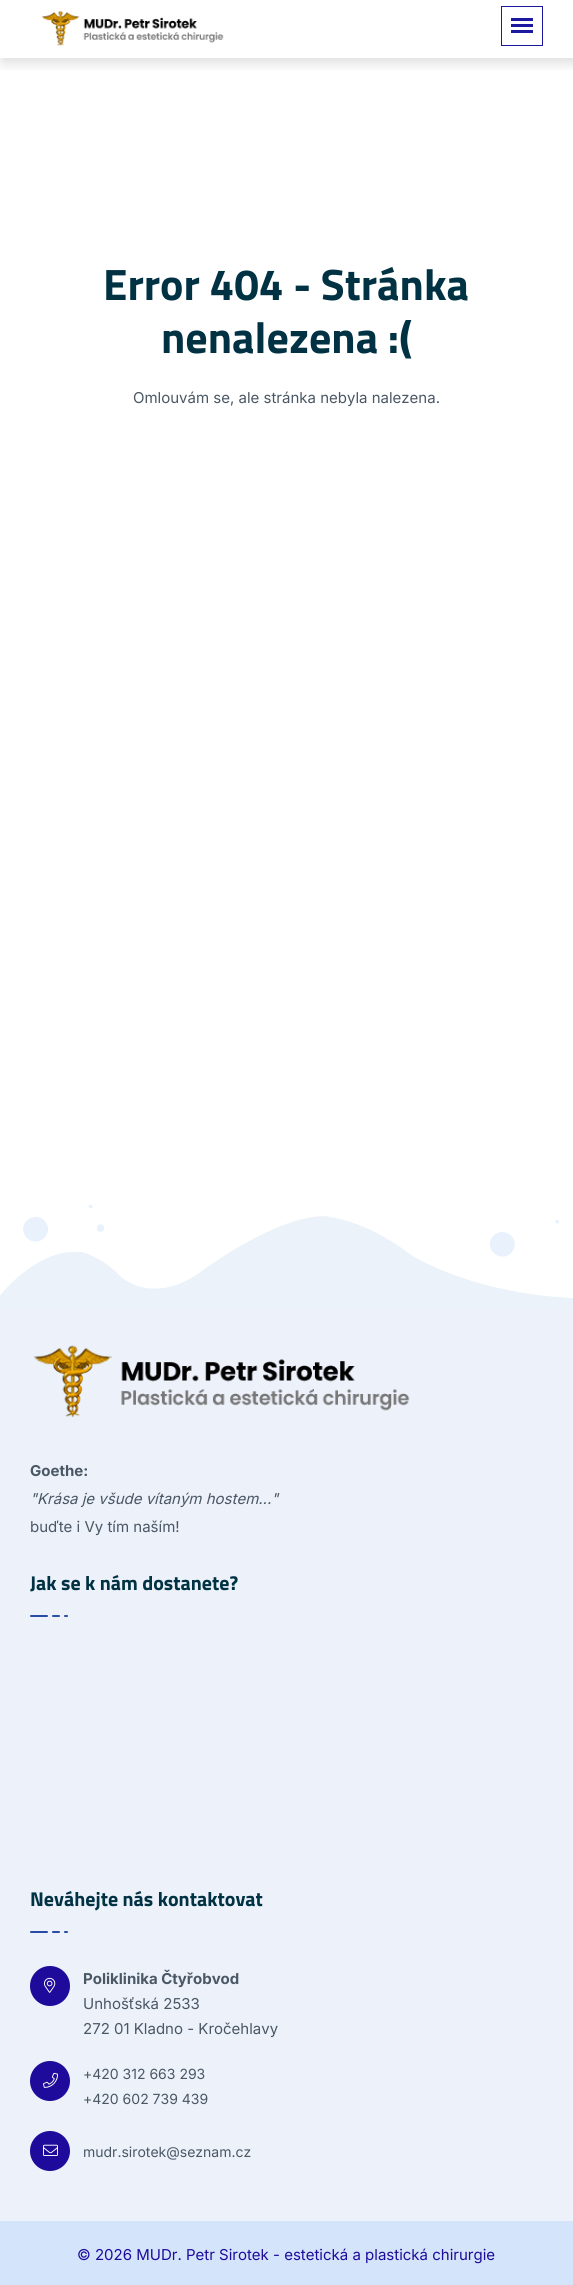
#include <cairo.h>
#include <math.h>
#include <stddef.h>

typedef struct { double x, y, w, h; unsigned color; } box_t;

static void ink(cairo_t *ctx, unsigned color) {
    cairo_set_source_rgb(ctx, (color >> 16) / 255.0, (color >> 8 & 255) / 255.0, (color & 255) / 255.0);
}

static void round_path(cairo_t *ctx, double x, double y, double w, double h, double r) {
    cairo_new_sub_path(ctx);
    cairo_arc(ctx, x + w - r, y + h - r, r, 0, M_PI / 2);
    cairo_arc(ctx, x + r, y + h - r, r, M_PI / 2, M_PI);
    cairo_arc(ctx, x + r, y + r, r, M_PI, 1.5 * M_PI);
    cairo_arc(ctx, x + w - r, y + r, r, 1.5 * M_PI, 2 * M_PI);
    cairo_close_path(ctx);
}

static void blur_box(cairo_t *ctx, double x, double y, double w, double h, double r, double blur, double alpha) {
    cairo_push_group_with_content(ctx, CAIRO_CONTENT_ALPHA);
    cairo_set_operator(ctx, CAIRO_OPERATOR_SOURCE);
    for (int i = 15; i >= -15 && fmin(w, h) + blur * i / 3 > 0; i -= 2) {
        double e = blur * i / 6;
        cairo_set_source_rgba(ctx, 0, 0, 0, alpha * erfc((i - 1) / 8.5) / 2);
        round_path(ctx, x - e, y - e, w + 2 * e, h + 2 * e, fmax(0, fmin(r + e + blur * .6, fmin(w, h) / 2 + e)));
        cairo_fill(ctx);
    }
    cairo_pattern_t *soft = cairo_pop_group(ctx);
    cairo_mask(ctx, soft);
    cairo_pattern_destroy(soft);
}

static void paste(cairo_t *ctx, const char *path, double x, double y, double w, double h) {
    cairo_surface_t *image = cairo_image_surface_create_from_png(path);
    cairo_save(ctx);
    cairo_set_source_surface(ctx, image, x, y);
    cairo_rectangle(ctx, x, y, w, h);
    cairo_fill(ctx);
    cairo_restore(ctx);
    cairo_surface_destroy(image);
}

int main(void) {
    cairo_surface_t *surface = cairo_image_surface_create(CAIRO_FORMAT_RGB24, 573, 2285);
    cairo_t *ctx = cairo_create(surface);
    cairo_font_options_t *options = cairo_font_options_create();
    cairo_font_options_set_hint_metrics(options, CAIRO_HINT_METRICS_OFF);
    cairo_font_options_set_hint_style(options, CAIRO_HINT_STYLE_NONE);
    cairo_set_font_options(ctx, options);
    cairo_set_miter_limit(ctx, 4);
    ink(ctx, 0xFFFFFF);
    cairo_paint(ctx);
    cairo_save(ctx);
    cairo_rectangle(ctx, 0, 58, 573, 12);
    cairo_clip(ctx);
    ink(ctx, 0x000000);
    blur_box(ctx, 3, 2, 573, 60, 0, 7.5, 0.15);
    cairo_restore(ctx);
    paste(ctx, "media/1.png", 42, 10, 182, 36);
    cairo_rectangle(ctx, 501.5, 6.5, 41, 39);
    ink(ctx, 0x1C19A0);
    cairo_set_line_width(ctx, 1);
    cairo_stroke(ctx);
    {
        static const box_t items[] = {
            {511, 18, 22, 3, 0x1C19A0},
            {511, 24, 22, 3, 0x1C19A0},
            {511, 30, 22, 3, 0x1C19A0},
        };
        for (size_t i = 0; i < sizeof items / sizeof *items; i++) {
            ink(ctx, items[i].color);
            cairo_rectangle(ctx, items[i].x, items[i].y, items[i].w, items[i].h);
            cairo_fill(ctx);
        }
    }
    cairo_select_font_face(ctx, "Titillium Web", CAIRO_FONT_SLANT_NORMAL, CAIRO_FONT_WEIGHT_BOLD);
    cairo_set_font_size(ctx, 44);
    ink(ctx, 0x013243);
    cairo_move_to(ctx, 103, 300);
    cairo_show_text(ctx, "Error 404 - Stránka");
    cairo_move_to(ctx, 161, 353);
    cairo_show_text(ctx, "nenalezena :(");
    cairo_select_font_face(ctx, "Inter", CAIRO_FONT_SLANT_NORMAL, CAIRO_FONT_WEIGHT_NORMAL);
    cairo_set_font_size(ctx, 15);
    ink(ctx, 0x4A5764);
    cairo_move_to(ctx, 133, 403);
    cairo_show_text(ctx, "Omlouvám se, ale stránka nebyla nalezena.");
    paste(ctx, "media/2.png", 0, 1204, 573, 105);
    ink(ctx, 0xECF1FA);
    cairo_rectangle(ctx, 0, 1309, 573, 912);
    cairo_fill(ctx);
    paste(ctx, "media/3.png", 33, 1345, 377, 73);
    cairo_select_font_face(ctx, "Inter", CAIRO_FONT_SLANT_NORMAL, CAIRO_FONT_WEIGHT_BOLD);
    ink(ctx, 0x4A5764);
    cairo_move_to(ctx, 30, 1476);
    cairo_show_text(ctx, "Goethe:");
    cairo_select_font_face(ctx, "Inter", CAIRO_FONT_SLANT_ITALIC, CAIRO_FONT_WEIGHT_NORMAL);
    cairo_move_to(ctx, 30, 1504);
    cairo_show_text(ctx, "\"Krása je všude vítaným hostem...\"");
    cairo_select_font_face(ctx, "Inter", CAIRO_FONT_SLANT_NORMAL, CAIRO_FONT_WEIGHT_NORMAL);
    cairo_move_to(ctx, 30, 1532);
    cairo_show_text(ctx, "buďte i Vy tím naším!");
    cairo_select_font_face(ctx, "Titillium Web", CAIRO_FONT_SLANT_NORMAL, CAIRO_FONT_WEIGHT_BOLD);
    cairo_set_font_size(ctx, 20);
    ink(ctx, 0x013243);
    cairo_move_to(ctx, 30, 1590);
    cairo_show_text(ctx, "Jak se k nám dostanete?");
    paste(ctx, "media/4.png", 30, 1615, 38, 2);
    cairo_move_to(ctx, 30, 1906);
    cairo_show_text(ctx, "Neváhejte nás kontaktovat");
    paste(ctx, "media/4.png", 30, 1931, 38, 2);
    ink(ctx, 0x1E0B9B);
    cairo_arc(ctx, 50, 1986, 20, 0, 2 * M_PI);
    cairo_fill(ctx);
    paste(ctx, "media/5.png", 44, 1977, 12, 16);
    cairo_select_font_face(ctx, "Inter", CAIRO_FONT_SLANT_NORMAL, CAIRO_FONT_WEIGHT_BOLD);
    cairo_set_font_size(ctx, 15);
    ink(ctx, 0x4A5764);
    cairo_move_to(ctx, 83, 1984);
    cairo_show_text(ctx, "Poliklinika Čtyřobvod");
    cairo_select_font_face(ctx, "Inter", CAIRO_FONT_SLANT_NORMAL, CAIRO_FONT_WEIGHT_NORMAL);
    cairo_move_to(ctx, 83, 2009);
    cairo_show_text(ctx, "Unhošťská 2533");
    cairo_move_to(ctx, 83, 2034);
    cairo_show_text(ctx, "272 01 Kladno - Kročehlavy");
    ink(ctx, 0x1E0B9B);
    cairo_new_path(ctx);
    cairo_arc(ctx, 50, 2081, 20, 0, 2 * M_PI);
    cairo_fill(ctx);
    paste(ctx, "media/6.png", 43, 2072, 15, 16);
    cairo_set_font_size(ctx, 14);
    ink(ctx, 0x4A5764);
    cairo_move_to(ctx, 83, 2079);
    cairo_show_text(ctx, "+420 312 663 293");
    cairo_move_to(ctx, 83, 2104);
    cairo_show_text(ctx, "+420 602 739 439");
    ink(ctx, 0x1E0B9B);
    cairo_new_path(ctx);
    cairo_arc(ctx, 50, 2151, 20, 0, 2 * M_PI);
    cairo_fill(ctx);
    paste(ctx, "media/7.png", 43, 2144, 15, 12);
    ink(ctx, 0x4A5764);
    cairo_move_to(ctx, 83, 2157);
    cairo_show_text(ctx, "mudr.sirotek@seznam.cz");
    ink(ctx, 0xD4E4FA);
    cairo_rectangle(ctx, 0, 2221, 573, 64);
    cairo_fill(ctx);
    cairo_set_font_size(ctx, 15);
    ink(ctx, 0x1E0B9B);
    cairo_move_to(ctx, 77, 2260);
    cairo_show_text(ctx, "© 2026 MUDr. Petr Sirotek - estetická a plastická chirurgie");
    cairo_surface_write_to_png(surface, "image.png");
    cairo_font_options_destroy(options);
    cairo_destroy(ctx);
    cairo_surface_destroy(surface);
    return 0;
}
